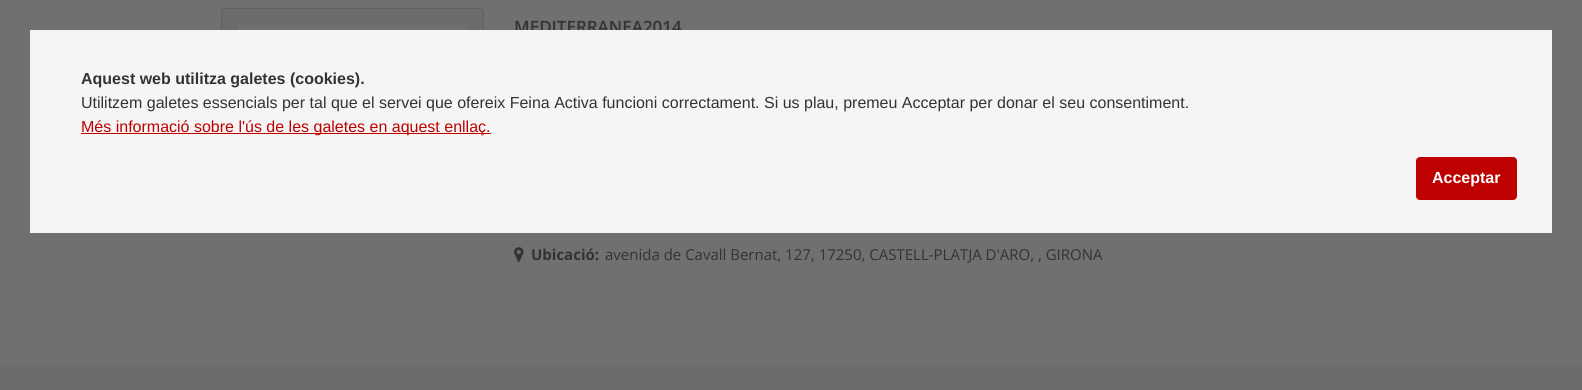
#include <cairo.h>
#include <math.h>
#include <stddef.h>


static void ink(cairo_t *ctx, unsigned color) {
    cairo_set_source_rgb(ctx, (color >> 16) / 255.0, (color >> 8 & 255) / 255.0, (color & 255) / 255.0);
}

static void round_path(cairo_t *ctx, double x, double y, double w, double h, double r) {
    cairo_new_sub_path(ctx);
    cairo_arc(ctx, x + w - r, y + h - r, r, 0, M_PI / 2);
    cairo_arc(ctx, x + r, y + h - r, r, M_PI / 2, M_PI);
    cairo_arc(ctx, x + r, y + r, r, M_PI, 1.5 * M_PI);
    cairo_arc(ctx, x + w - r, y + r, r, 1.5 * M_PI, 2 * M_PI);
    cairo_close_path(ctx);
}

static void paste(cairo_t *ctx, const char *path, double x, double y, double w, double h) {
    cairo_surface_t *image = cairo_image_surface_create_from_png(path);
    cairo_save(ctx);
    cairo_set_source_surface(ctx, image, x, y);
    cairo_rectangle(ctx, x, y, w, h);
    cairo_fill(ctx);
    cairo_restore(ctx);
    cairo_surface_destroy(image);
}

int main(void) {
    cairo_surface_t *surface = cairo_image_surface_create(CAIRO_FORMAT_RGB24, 1582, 390);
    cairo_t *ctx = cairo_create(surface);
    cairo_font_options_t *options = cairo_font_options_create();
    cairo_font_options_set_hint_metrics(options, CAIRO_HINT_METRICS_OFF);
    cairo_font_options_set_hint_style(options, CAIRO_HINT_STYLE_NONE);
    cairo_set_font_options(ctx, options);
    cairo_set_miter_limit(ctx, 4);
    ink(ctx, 0x707070);
    cairo_paint(ctx);
    ink(ctx, 0x6B6B6B);
    round_path(ctx, 221.5, 8.5, 262, 125, 3.5);
    cairo_fill_preserve(ctx);
    ink(ctx, 0x616161);
    cairo_set_line_width(ctx, 1);
    cairo_stroke(ctx);
    ink(ctx, 0x707070);
    cairo_rectangle(ctx, 238, 25, 229, 5);
    cairo_fill(ctx);
    cairo_select_font_face(ctx, "Open Sans SemiBold", CAIRO_FONT_SLANT_NORMAL, CAIRO_FONT_WEIGHT_NORMAL);
    cairo_set_font_size(ctx, 17);
    ink(ctx, 0x333333);
    cairo_move_to(ctx, 514, 33);
    cairo_show_text(ctx, "MEDITERRANEA2014");
    paste(ctx, "media/1.png", 514, 247, 10, 16);
    cairo_select_font_face(ctx, "Open Sans", CAIRO_FONT_SLANT_NORMAL, CAIRO_FONT_WEIGHT_BOLD);
    cairo_set_font_size(ctx, 15);
    cairo_move_to(ctx, 531, 260);
    cairo_show_text(ctx, "Ubicació:");
    cairo_select_font_face(ctx, "Open Sans", CAIRO_FONT_SLANT_NORMAL, CAIRO_FONT_WEIGHT_NORMAL);
    cairo_move_to(ctx, 605, 260);
    cairo_show_text(ctx, "avenida de Cavall Bernat, 127, 17250, CASTELL-PLATJA D'ARO, , GIRONA");
    ink(ctx, 0x6B6B6B);
    cairo_rectangle(ctx, 0, 365, 1582, 25);
    cairo_fill(ctx);
    ink(ctx, 0xF5F5F5);
    cairo_rectangle(ctx, 30, 30, 1522, 203);
    cairo_fill(ctx);
    cairo_select_font_face(ctx, "Liberation Sans", CAIRO_FONT_SLANT_NORMAL, CAIRO_FONT_WEIGHT_BOLD);
    cairo_set_font_size(ctx, 16);
    ink(ctx, 0x333333);
    cairo_move_to(ctx, 81, 84);
    cairo_show_text(ctx, "Aquest web utilitza galetes (cookies).");
    cairo_select_font_face(ctx, "Liberation Sans", CAIRO_FONT_SLANT_NORMAL, CAIRO_FONT_WEIGHT_NORMAL);
    cairo_move_to(ctx, 81, 108);
    cairo_show_text(ctx, "Utilitzem galetes essencials per tal que el servei que ofereix Feina Activa funcioni correctament. Si us plau, premeu Acceptar per donar el seu consentiment.");
    ink(ctx, 0xBD0000);
    cairo_rectangle(ctx, 81, 133, 410, 1);
    cairo_fill(ctx);
    cairo_move_to(ctx, 81, 132);
    cairo_show_text(ctx, "Més informació sobre l'ús de les galetes en aquest enllaç.");
    round_path(ctx, 1416.5, 157.5, 100, 42, 3.5);
    cairo_fill_preserve(ctx);
    cairo_stroke(ctx);
    cairo_select_font_face(ctx, "Liberation Sans", CAIRO_FONT_SLANT_NORMAL, CAIRO_FONT_WEIGHT_BOLD);
    ink(ctx, 0xFFFFFF);
    cairo_move_to(ctx, 1432, 183);
    cairo_show_text(ctx, "Acceptar");
    cairo_surface_write_to_png(surface, "image.png");
    cairo_font_options_destroy(options);
    cairo_destroy(ctx);
    cairo_surface_destroy(surface);
    return 0;
}
